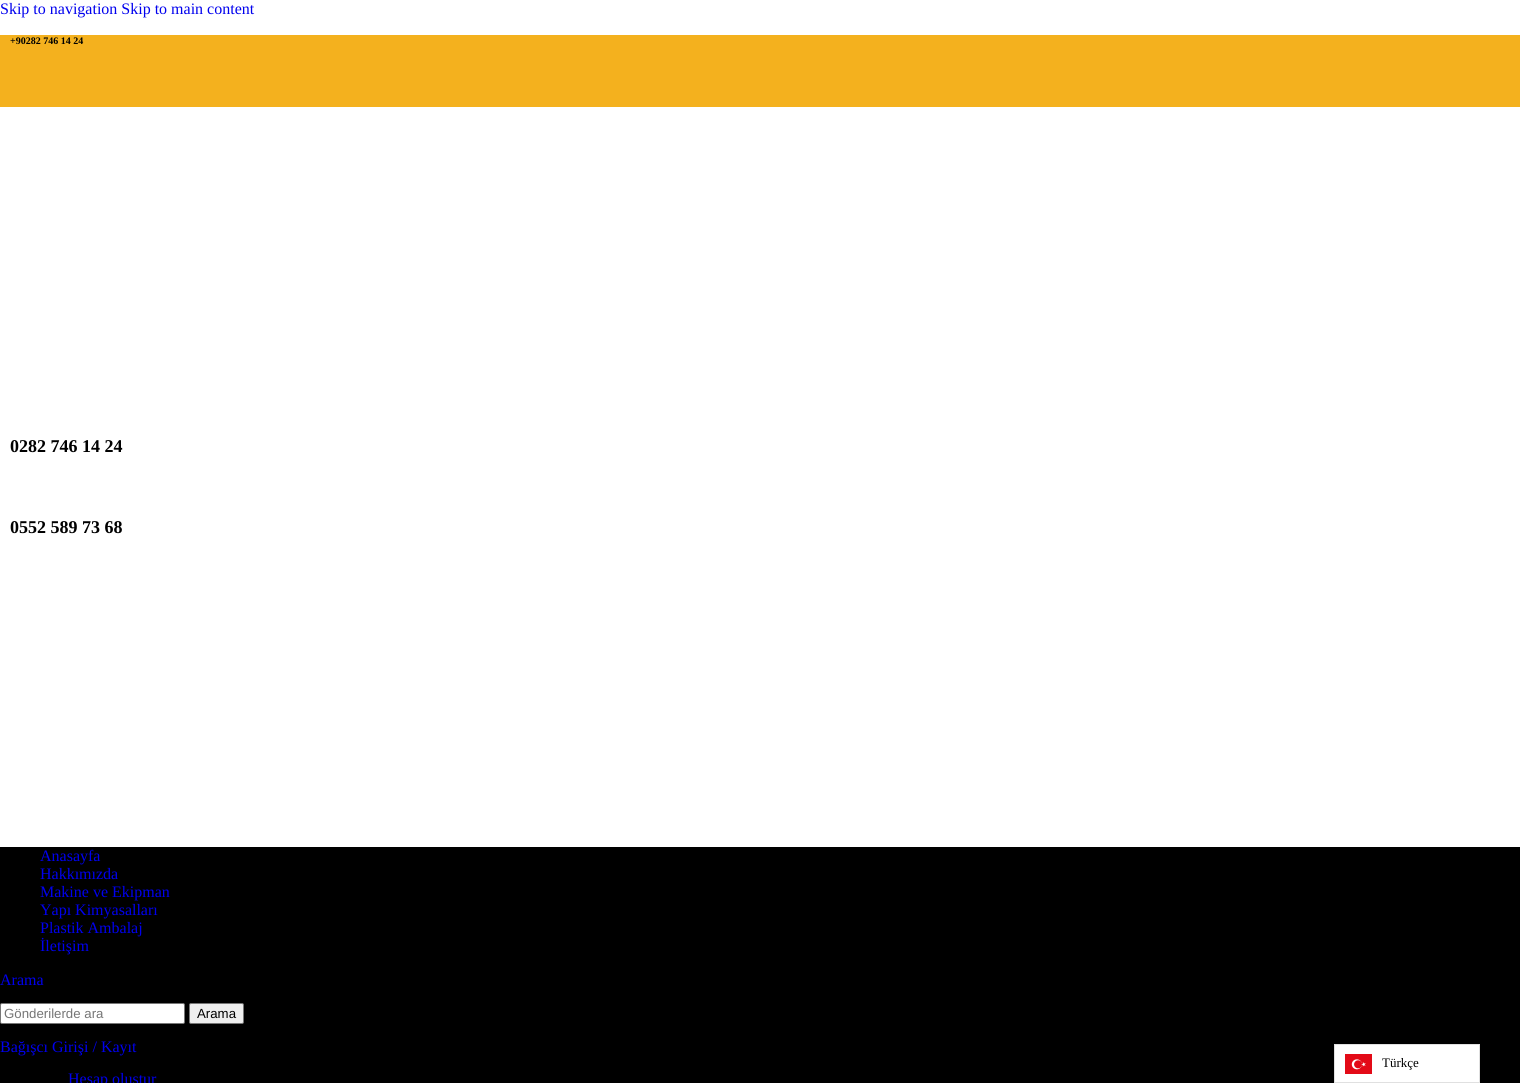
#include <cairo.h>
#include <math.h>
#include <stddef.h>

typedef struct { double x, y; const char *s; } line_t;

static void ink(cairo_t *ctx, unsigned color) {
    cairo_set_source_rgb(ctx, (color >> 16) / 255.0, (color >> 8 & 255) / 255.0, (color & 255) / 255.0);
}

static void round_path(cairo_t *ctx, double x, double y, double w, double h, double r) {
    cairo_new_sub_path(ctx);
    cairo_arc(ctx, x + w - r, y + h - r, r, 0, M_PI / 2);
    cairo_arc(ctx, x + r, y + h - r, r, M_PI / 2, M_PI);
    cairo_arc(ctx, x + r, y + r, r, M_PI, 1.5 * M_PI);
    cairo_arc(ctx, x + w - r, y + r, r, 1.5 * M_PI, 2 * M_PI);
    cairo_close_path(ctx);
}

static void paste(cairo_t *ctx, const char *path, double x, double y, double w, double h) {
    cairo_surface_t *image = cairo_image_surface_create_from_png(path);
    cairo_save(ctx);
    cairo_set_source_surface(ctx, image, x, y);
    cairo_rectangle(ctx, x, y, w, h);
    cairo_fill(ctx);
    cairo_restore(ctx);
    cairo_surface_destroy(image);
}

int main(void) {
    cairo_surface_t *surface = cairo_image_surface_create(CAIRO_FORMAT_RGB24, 1520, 1083);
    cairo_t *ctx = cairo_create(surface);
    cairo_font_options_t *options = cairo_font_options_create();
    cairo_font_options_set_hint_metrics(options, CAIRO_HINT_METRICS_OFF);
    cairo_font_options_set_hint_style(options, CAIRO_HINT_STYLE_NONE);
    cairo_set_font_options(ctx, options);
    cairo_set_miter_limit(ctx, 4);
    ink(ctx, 0xFFFFFF);
    cairo_paint(ctx);
    cairo_select_font_face(ctx, "Liberation Serif", CAIRO_FONT_SLANT_NORMAL, CAIRO_FONT_WEIGHT_NORMAL);
    cairo_set_font_size(ctx, 16);
    ink(ctx, 0x0000EE);
    cairo_move_to(ctx, 0, 14);
    cairo_show_text(ctx, "Skip to navigation Skip to main content");
    ink(ctx, 0xF4B11E);
    cairo_rectangle(ctx, 0, 35, 1520, 72);
    cairo_fill(ctx);
    cairo_select_font_face(ctx, "Liberation Serif", CAIRO_FONT_SLANT_NORMAL, CAIRO_FONT_WEIGHT_BOLD);
    cairo_set_font_size(ctx, 10);
    ink(ctx, 0x000000);
    cairo_move_to(ctx, 10, 44);
    cairo_show_text(ctx, "+90282 746 14 24");
    cairo_set_font_size(ctx, 18);
    cairo_move_to(ctx, 10, 452);
    cairo_show_text(ctx, "0282 746 14 24");
    cairo_move_to(ctx, 10, 533);
    cairo_show_text(ctx, "0552 589 73 68");
    cairo_rectangle(ctx, 0, 847, 1520, 236);
    cairo_fill(ctx);
    cairo_select_font_face(ctx, "Liberation Serif", CAIRO_FONT_SLANT_NORMAL, CAIRO_FONT_WEIGHT_NORMAL);
    cairo_set_font_size(ctx, 16);
    ink(ctx, 0x0000EE);
    {
        static const line_t items[] = {
            {40, 861, "Anasayfa"},
            {40, 879, "Hakkımızda"},
            {40, 897, "Makine ve Ekipman"},
            {40, 915, "Yapı Kimyasalları"},
            {40, 933, "Plastik Ambalaj"},
            {40, 951, "İletişim"},
            {0, 985, "Arama"},
        };
        for (size_t i = 0; i < sizeof items / sizeof *items; i++) {
            cairo_move_to(ctx, items[i].x, items[i].y);
            cairo_show_text(ctx, items[i].s);
        }
    }
    ink(ctx, 0xFFFFFF);
    round_path(ctx, 0.5, 1003.5, 184, 20, 1.5);
    cairo_fill_preserve(ctx);
    ink(ctx, 0x767676);
    cairo_set_line_width(ctx, 1);
    cairo_stroke(ctx);
    cairo_select_font_face(ctx, "Liberation Sans", CAIRO_FONT_SLANT_NORMAL, CAIRO_FONT_WEIGHT_NORMAL);
    cairo_set_font_size(ctx, 13.25);
    ink(ctx, 0x757575);
    cairo_move_to(ctx, 4, 1018);
    cairo_show_text(ctx, "Gönderilerde ara");
    ink(ctx, 0xEFEFEF);
    round_path(ctx, 189.5, 1003.5, 54, 20, 1.5);
    cairo_fill_preserve(ctx);
    ink(ctx, 0x767676);
    cairo_stroke(ctx);
    ink(ctx, 0x000000);
    cairo_move_to(ctx, 197, 1018);
    cairo_show_text(ctx, "Arama");
    cairo_select_font_face(ctx, "Liberation Serif", CAIRO_FONT_SLANT_NORMAL, CAIRO_FONT_WEIGHT_NORMAL);
    cairo_set_font_size(ctx, 16);
    ink(ctx, 0x0000EE);
    cairo_move_to(ctx, 0, 1052);
    cairo_show_text(ctx, "Bağışcı Girişi / Kayıt");
    cairo_move_to(ctx, 68, 1084);
    cairo_show_text(ctx, "Hesap oluştur");
    ink(ctx, 0xFFFFFF);
    cairo_rectangle(ctx, 1334.5, 1044.5, 145, 38);
    cairo_fill_preserve(ctx);
    ink(ctx, 0xE0E0E0);
    cairo_stroke(ctx);
    paste(ctx, "media/1.png", 1345, 1054, 27, 20);
    cairo_set_font_size(ctx, 13);
    ink(ctx, 0x000000);
    cairo_move_to(ctx, 1382, 1067);
    cairo_show_text(ctx, "Türkçe");
    cairo_surface_write_to_png(surface, "image.png");
    cairo_font_options_destroy(options);
    cairo_destroy(ctx);
    cairo_surface_destroy(surface);
    return 0;
}
